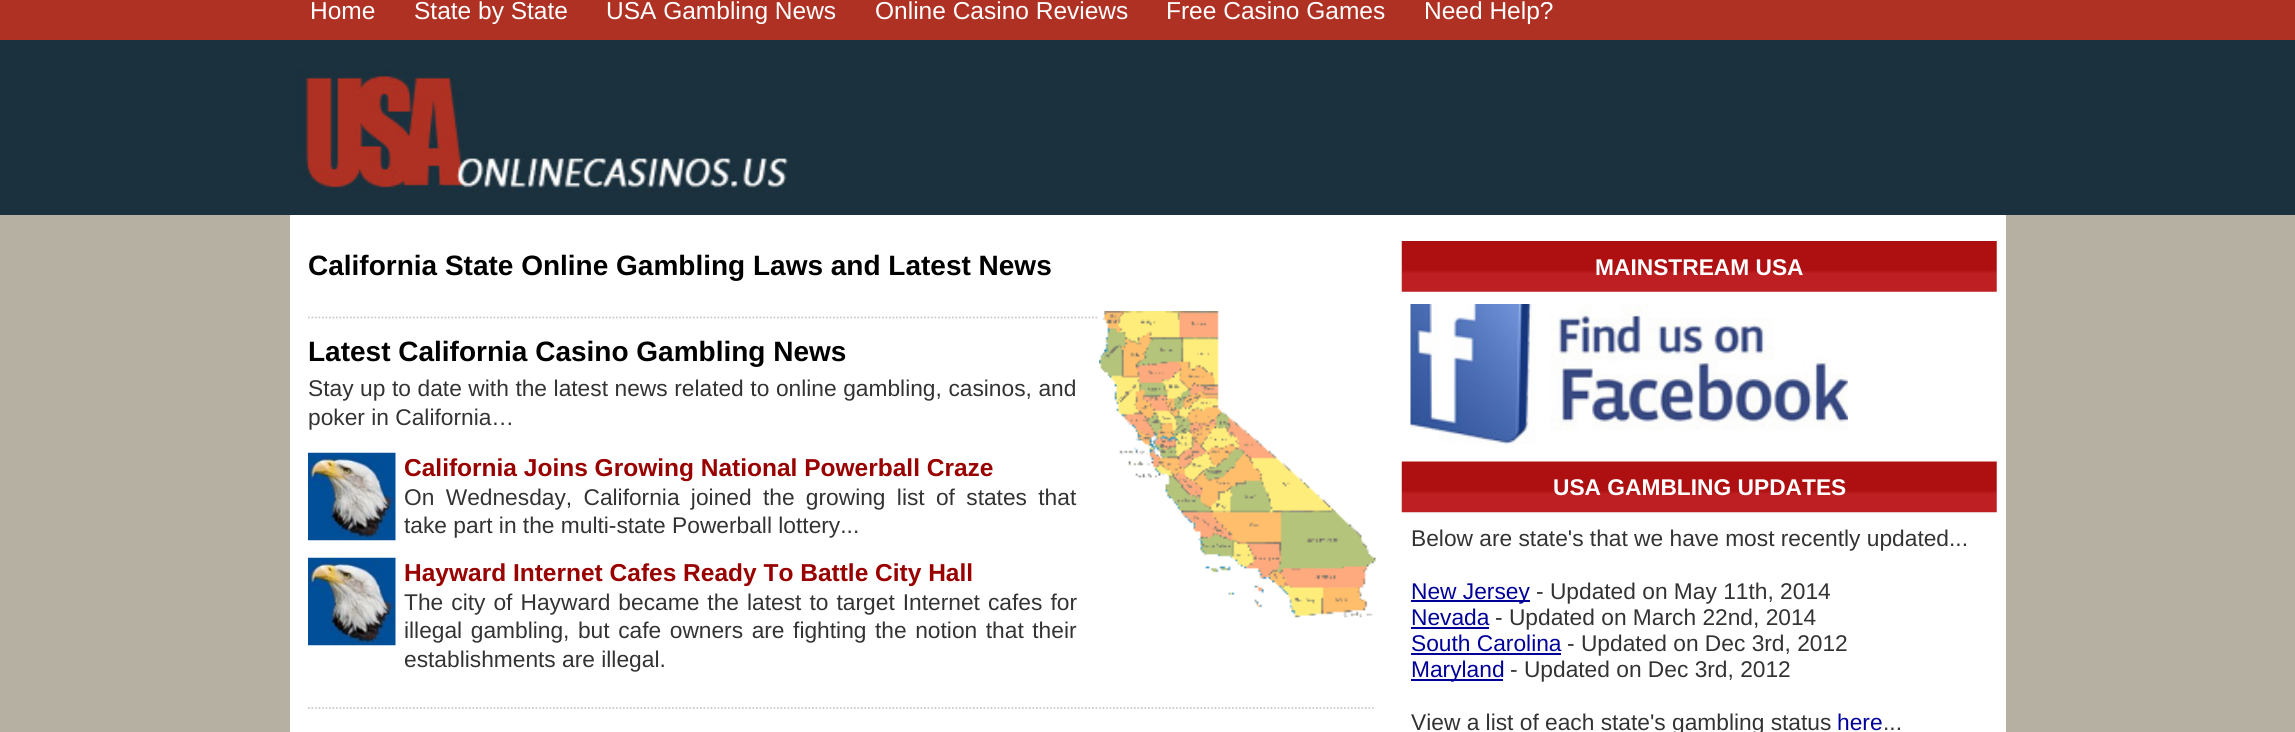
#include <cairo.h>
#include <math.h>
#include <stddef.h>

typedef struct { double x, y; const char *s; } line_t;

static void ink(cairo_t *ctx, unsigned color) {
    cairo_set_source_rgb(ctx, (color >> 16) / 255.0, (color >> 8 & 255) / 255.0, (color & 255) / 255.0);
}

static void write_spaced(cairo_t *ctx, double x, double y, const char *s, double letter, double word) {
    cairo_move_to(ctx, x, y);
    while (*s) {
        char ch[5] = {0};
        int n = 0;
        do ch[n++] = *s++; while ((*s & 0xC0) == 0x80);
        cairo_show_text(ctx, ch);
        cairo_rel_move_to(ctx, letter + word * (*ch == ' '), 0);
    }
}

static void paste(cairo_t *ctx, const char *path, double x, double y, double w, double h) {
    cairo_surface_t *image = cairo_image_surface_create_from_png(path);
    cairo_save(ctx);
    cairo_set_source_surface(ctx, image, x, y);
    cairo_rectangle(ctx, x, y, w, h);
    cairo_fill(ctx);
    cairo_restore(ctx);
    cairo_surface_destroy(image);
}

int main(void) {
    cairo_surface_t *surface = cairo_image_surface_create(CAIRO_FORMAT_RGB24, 2295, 732);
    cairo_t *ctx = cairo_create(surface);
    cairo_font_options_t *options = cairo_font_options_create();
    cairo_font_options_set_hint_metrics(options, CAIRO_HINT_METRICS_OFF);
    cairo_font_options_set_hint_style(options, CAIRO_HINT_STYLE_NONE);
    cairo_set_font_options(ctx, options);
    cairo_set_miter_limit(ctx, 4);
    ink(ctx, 0xB5B0A1);
    cairo_paint(ctx);
    ink(ctx, 0xAF3123);
    cairo_rectangle(ctx, 0, 0, 2295, 40);
    cairo_fill(ctx);
    cairo_select_font_face(ctx, "Liberation Sans", CAIRO_FONT_SLANT_NORMAL, CAIRO_FONT_WEIGHT_NORMAL);
    cairo_set_font_size(ctx, 24.5);
    ink(ctx, 0xFFFFFF);
    {
        static const line_t items[] = {
            {310, 19, "Home"},
            {414, 19, "State by State"},
            {606, 19, "USA Gambling News"},
            {875, 19, "Online Casino Reviews"},
            {1166, 19, "Free Casino Games"},
            {1424, 19, "Need Help?"},
        };
        for (size_t i = 0; i < sizeof items / sizeof *items; i++) {
            cairo_move_to(ctx, items[i].x, items[i].y);
            cairo_show_text(ctx, items[i].s);
        }
    }
    ink(ctx, 0x1B313E);
    cairo_rectangle(ctx, 0, 40, 2295, 175);
    cairo_fill(ctx);
    paste(ctx, "media/1.png", 297, 68, 491, 124);
    ink(ctx, 0xFFFFFF);
    cairo_rectangle(ctx, 290, 215, 1716, 517);
    cairo_fill(ctx);
    cairo_select_font_face(ctx, "Liberation Sans", CAIRO_FONT_SLANT_NORMAL, CAIRO_FONT_WEIGHT_BOLD);
    cairo_set_font_size(ctx, 28);
    ink(ctx, 0x000000);
    cairo_move_to(ctx, 308, 275);
    cairo_show_text(ctx, "California State Online Gambling Laws and Latest News");
    cairo_new_path(ctx);
    cairo_move_to(ctx, 308, 317.5);
    cairo_line_to(ctx, 1375.5, 317.5);
    ink(ctx, 0xCCCCCC);
    cairo_set_line_width(ctx, 1.8);
    cairo_set_dash(ctx, (double[]){1.75, 1.75}, 2, 0);
    cairo_stroke(ctx);
    paste(ctx, "media/2.png", 1099, 311, 277, 307);
    ink(ctx, 0x000000);
    cairo_move_to(ctx, 308, 361);
    cairo_show_text(ctx, "Latest California Casino Gambling News");
    cairo_select_font_face(ctx, "Liberation Sans", CAIRO_FONT_SLANT_NORMAL, CAIRO_FONT_WEIGHT_NORMAL);
    cairo_set_font_size(ctx, 22.75);
    ink(ctx, 0x333333);
    write_spaced(ctx, 308, 396, "Stay up to date with the latest news related to online gambling, casinos, and", 0, 0.25);
    cairo_move_to(ctx, 308, 425);
    cairo_show_text(ctx, "poker in California…");
    paste(ctx, "media/3.png", 308, 452, 88, 89);
    cairo_select_font_face(ctx, "Liberation Sans", CAIRO_FONT_SLANT_NORMAL, CAIRO_FONT_WEIGHT_BOLD);
    cairo_set_font_size(ctx, 24.5);
    ink(ctx, 0x990000);
    cairo_move_to(ctx, 404, 476);
    cairo_show_text(ctx, "California Joins Growing National Powerball Craze");
    cairo_select_font_face(ctx, "Liberation Sans", CAIRO_FONT_SLANT_NORMAL, CAIRO_FONT_WEIGHT_NORMAL);
    cairo_set_font_size(ctx, 22.75);
    ink(ctx, 0x333333);
    write_spaced(ctx, 404, 505, "On Wednesday, California joined the growing list of states that", 0, 5);
    cairo_move_to(ctx, 404, 533);
    cairo_show_text(ctx, "take part in the multi-state Powerball lottery...");
    paste(ctx, "media/4.png", 308, 557, 88, 89);
    cairo_select_font_face(ctx, "Liberation Sans", CAIRO_FONT_SLANT_NORMAL, CAIRO_FONT_WEIGHT_BOLD);
    cairo_set_font_size(ctx, 24.5);
    ink(ctx, 0x990000);
    cairo_move_to(ctx, 404, 581);
    cairo_show_text(ctx, "Hayward Internet Cafes Ready To Battle City Hall");
    cairo_select_font_face(ctx, "Liberation Sans", CAIRO_FONT_SLANT_NORMAL, CAIRO_FONT_WEIGHT_NORMAL);
    cairo_set_font_size(ctx, 22.75);
    ink(ctx, 0x333333);
    write_spaced(ctx, 404, 610, "The city of Hayward became the latest to target Internet cafes for", 0, 1.75);
    write_spaced(ctx, 404, 638, "illegal gambling, but cafe owners are fighting the notion that their", 0, 2.25);
    cairo_move_to(ctx, 404, 667);
    cairo_show_text(ctx, "establishments are illegal.");
    cairo_new_path(ctx);
    cairo_move_to(ctx, 308, 708);
    cairo_line_to(ctx, 1375.5, 708);
    ink(ctx, 0xCCCCCC);
    cairo_stroke(ctx);
    paste(ctx, "media/5.png", 1401, 241, 596, 51);
    cairo_select_font_face(ctx, "Liberation Sans", CAIRO_FONT_SLANT_NORMAL, CAIRO_FONT_WEIGHT_BOLD);
    ink(ctx, 0xFFFFFF);
    cairo_move_to(ctx, 1595, 275);
    cairo_show_text(ctx, "MAINSTREAM USA");
    paste(ctx, "media/6.png", 1410, 304, 438, 140);
    paste(ctx, "media/7.png", 1401, 461, 596, 52);
    cairo_move_to(ctx, 1553, 495);
    cairo_show_text(ctx, "USA GAMBLING UPDATES");
    cairo_select_font_face(ctx, "Liberation Sans", CAIRO_FONT_SLANT_NORMAL, CAIRO_FONT_WEIGHT_NORMAL);
    ink(ctx, 0x333333);
    cairo_move_to(ctx, 1411, 546);
    cairo_show_text(ctx, "Below are state's that we have most recently updated...");
    ink(ctx, 0x000099);
    cairo_rectangle(ctx, 1411, 600, 119, 2);
    cairo_fill(ctx);
    cairo_move_to(ctx, 1411, 599);
    cairo_show_text(ctx, "New Jersey");
    ink(ctx, 0x333333);
    cairo_move_to(ctx, 1536, 599);
    cairo_show_text(ctx, "- Updated on May 11th, 2014");
    ink(ctx, 0x000099);
    cairo_move_to(ctx, 1411, 625);
    cairo_show_text(ctx, "Nevada");
    cairo_rectangle(ctx, 1411, 627, 78, 2);
    cairo_fill(ctx);
    ink(ctx, 0x333333);
    cairo_move_to(ctx, 1495, 625);
    cairo_show_text(ctx, "- Updated on March 22nd, 2014");
    ink(ctx, 0x000099);
    cairo_move_to(ctx, 1411, 651);
    cairo_show_text(ctx, "South Carolina");
    cairo_rectangle(ctx, 1411, 653, 150, 2);
    cairo_fill(ctx);
    ink(ctx, 0x333333);
    cairo_move_to(ctx, 1567, 651);
    cairo_show_text(ctx, "- Updated on Dec 3rd, 2012");
    ink(ctx, 0x000099);
    cairo_rectangle(ctx, 1411, 679, 92, 2);
    cairo_fill(ctx);
    cairo_move_to(ctx, 1411, 677);
    cairo_show_text(ctx, "Maryland");
    ink(ctx, 0x333333);
    cairo_move_to(ctx, 1510, 677);
    cairo_show_text(ctx, "- Updated on Dec 3rd, 2012");
    cairo_move_to(ctx, 1411, 730);
    cairo_show_text(ctx, "View a list of each state's gambling status");
    ink(ctx, 0x000099);
    cairo_move_to(ctx, 1837, 730);
    cairo_show_text(ctx, "here");
    ink(ctx, 0x333333);
    cairo_move_to(ctx, 1883, 730);
    cairo_show_text(ctx, "...");
    cairo_surface_write_to_png(surface, "image.png");
    cairo_font_options_destroy(options);
    cairo_destroy(ctx);
    cairo_surface_destroy(surface);
    return 0;
}
